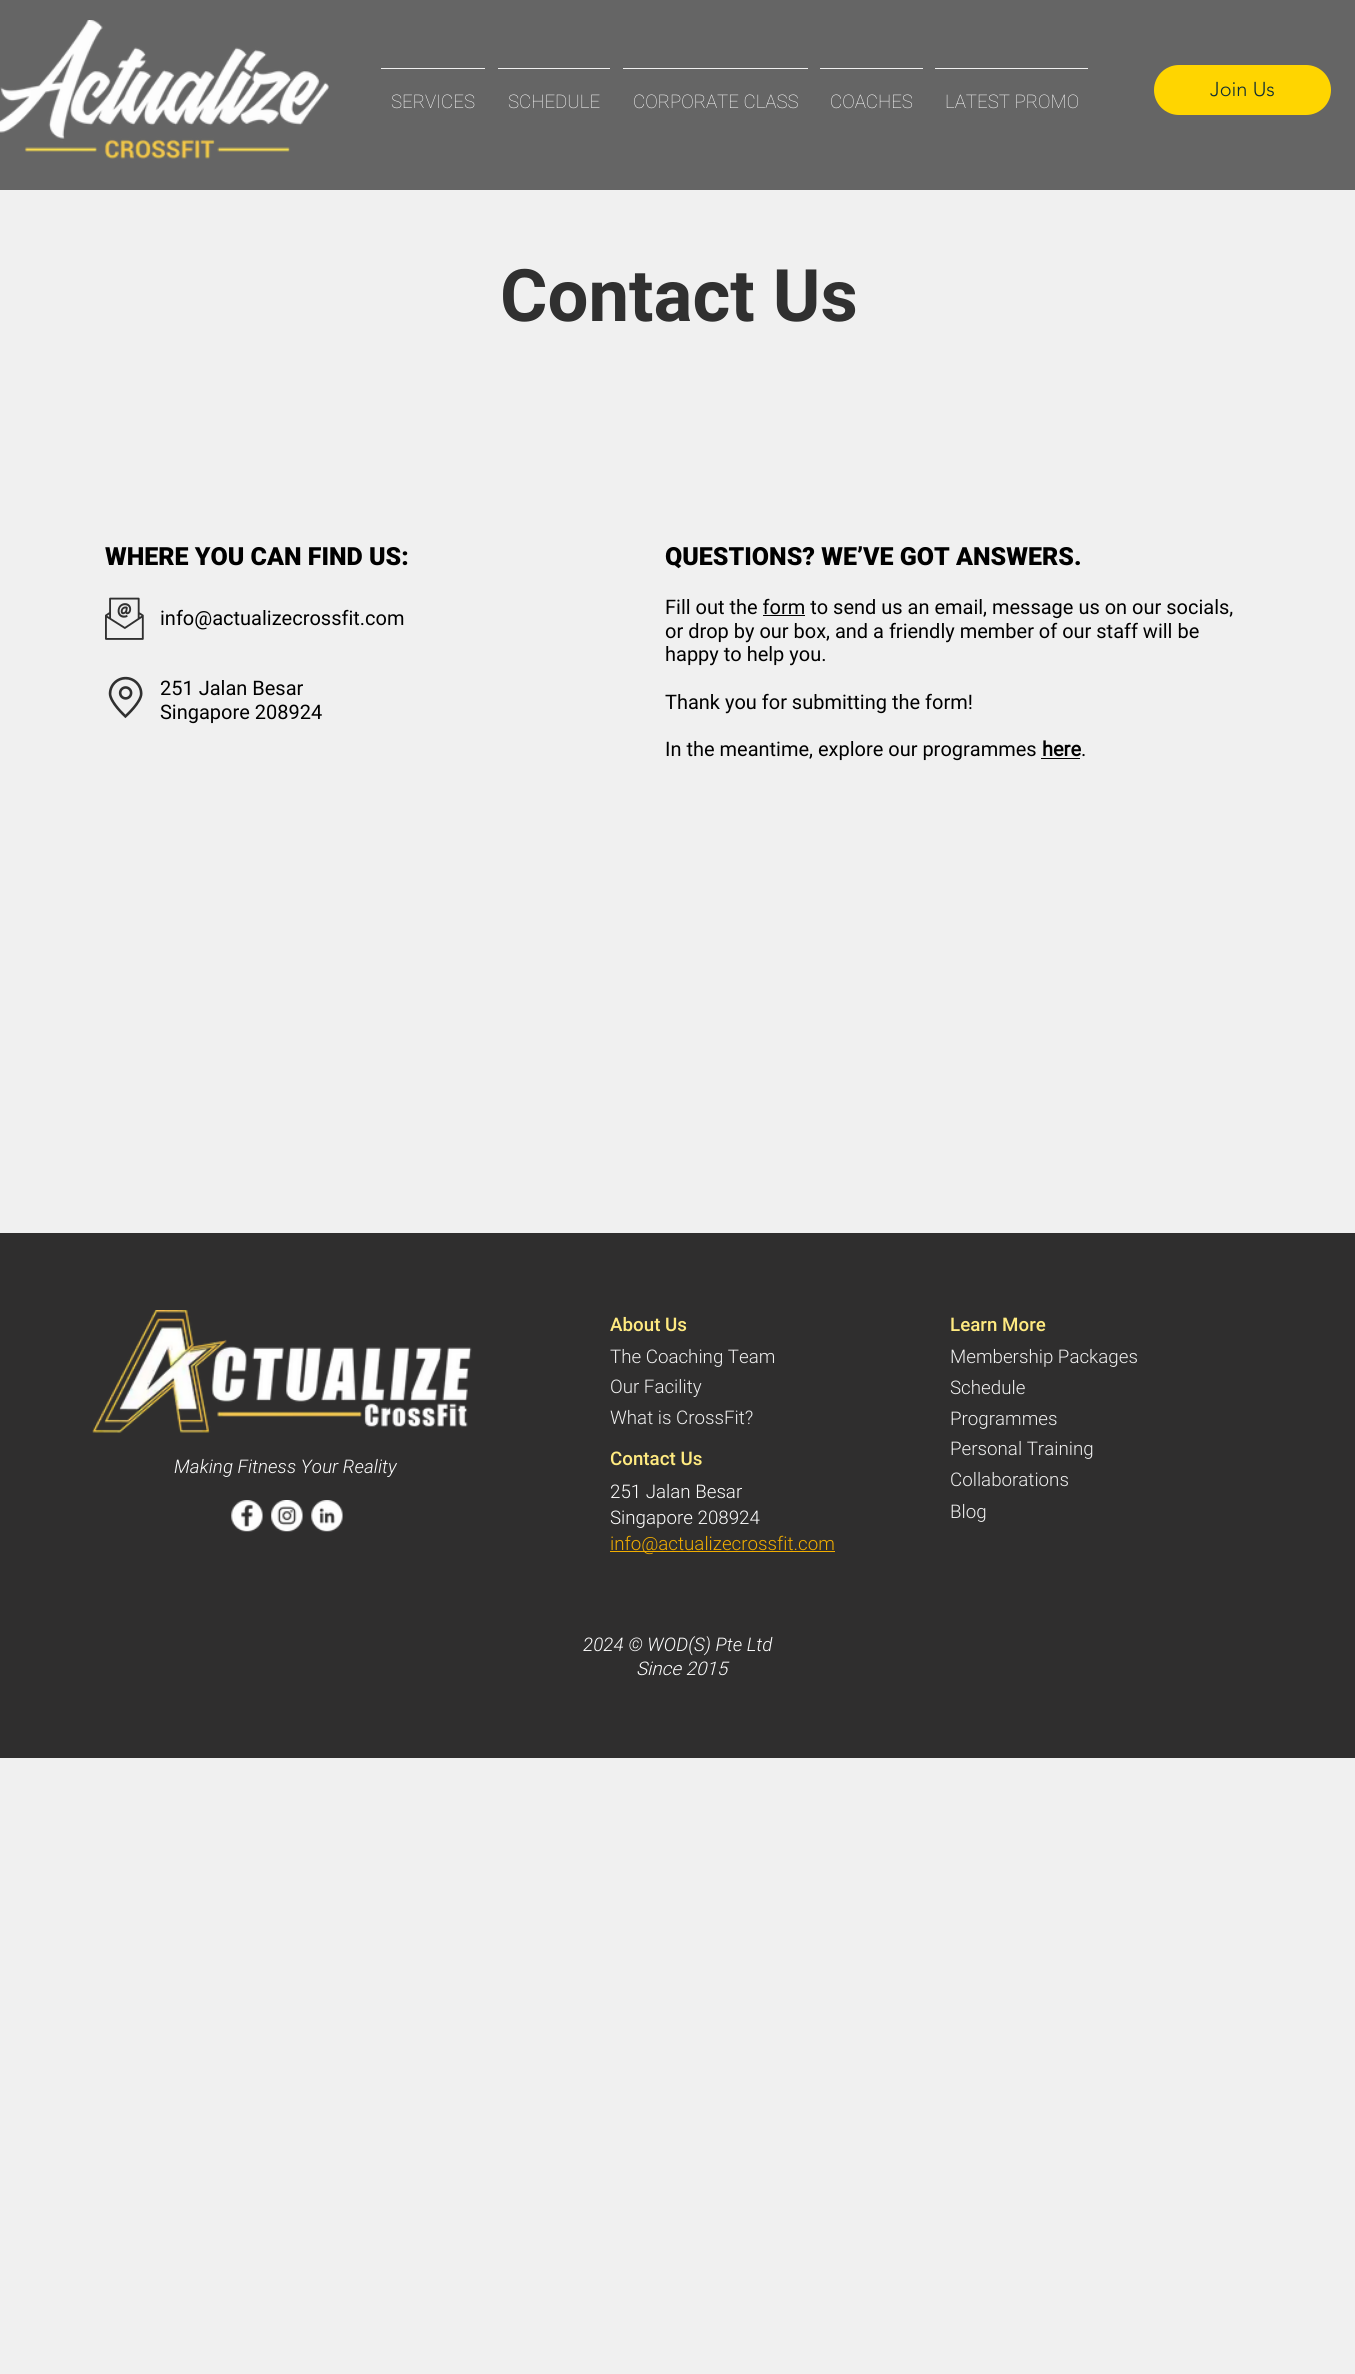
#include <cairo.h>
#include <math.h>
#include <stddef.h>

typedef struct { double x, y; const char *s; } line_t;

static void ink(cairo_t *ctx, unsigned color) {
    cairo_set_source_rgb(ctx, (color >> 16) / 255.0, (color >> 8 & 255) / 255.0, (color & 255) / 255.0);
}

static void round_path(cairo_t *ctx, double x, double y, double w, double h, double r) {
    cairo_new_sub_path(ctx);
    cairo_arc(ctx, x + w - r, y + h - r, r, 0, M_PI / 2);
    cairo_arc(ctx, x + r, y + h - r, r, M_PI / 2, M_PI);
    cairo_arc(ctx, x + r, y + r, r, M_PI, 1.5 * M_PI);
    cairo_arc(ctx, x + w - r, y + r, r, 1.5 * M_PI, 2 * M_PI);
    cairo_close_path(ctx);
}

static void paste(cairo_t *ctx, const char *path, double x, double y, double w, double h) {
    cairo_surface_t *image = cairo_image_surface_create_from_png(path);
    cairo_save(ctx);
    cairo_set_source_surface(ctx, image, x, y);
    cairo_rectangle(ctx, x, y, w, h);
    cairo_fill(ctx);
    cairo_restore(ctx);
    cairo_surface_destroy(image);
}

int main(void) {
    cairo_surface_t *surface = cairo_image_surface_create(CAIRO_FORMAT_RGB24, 1355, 2374);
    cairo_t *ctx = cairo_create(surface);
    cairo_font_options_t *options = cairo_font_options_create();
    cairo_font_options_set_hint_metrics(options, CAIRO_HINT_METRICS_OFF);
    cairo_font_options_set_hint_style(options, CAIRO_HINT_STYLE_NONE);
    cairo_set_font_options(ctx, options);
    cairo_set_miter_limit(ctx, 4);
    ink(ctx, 0xF0F0F0);
    cairo_paint(ctx);
    ink(ctx, 0x656565);
    cairo_rectangle(ctx, 0, 0, 1355, 190);
    cairo_fill(ctx);
    paste(ctx, "media/1.png", 0, 20, 329, 139);
    ink(ctx, 0xFFD500);
    round_path(ctx, 1154, 65, 177, 50, 25);
    cairo_fill(ctx);
    cairo_select_font_face(ctx, "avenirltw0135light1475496 Light", CAIRO_FONT_SLANT_NORMAL, CAIRO_FONT_WEIGHT_NORMAL);
    cairo_set_font_size(ctx, 20);
    ink(ctx, 0x0E2E34);
    cairo_move_to(ctx, 1210, 96);
    cairo_show_text(ctx, "Join Us");
    ink(ctx, 0xF0F0F0);
    cairo_rectangle(ctx, 381, 68, 104, 1);
    cairo_fill(ctx);
    cairo_select_font_face(ctx, "Roboto Thin", CAIRO_FONT_SLANT_NORMAL, CAIRO_FONT_WEIGHT_NORMAL);
    cairo_set_font_size(ctx, 18.75);
    ink(ctx, 0xFFFFFF);
    cairo_move_to(ctx, 391, 108);
    cairo_show_text(ctx, "SERVICES");
    ink(ctx, 0xF0F0F0);
    cairo_rectangle(ctx, 498, 68, 112, 1);
    cairo_fill(ctx);
    ink(ctx, 0xFFFFFF);
    cairo_move_to(ctx, 508, 108);
    cairo_show_text(ctx, "SCHEDULE");
    ink(ctx, 0xF0F0F0);
    cairo_rectangle(ctx, 623, 68, 185, 1);
    cairo_fill(ctx);
    ink(ctx, 0xFFFFFF);
    cairo_move_to(ctx, 633, 108);
    cairo_show_text(ctx, "CORPORATE CLASS");
    ink(ctx, 0xF0F0F0);
    cairo_rectangle(ctx, 820, 68, 103, 1);
    cairo_fill(ctx);
    ink(ctx, 0xFFFFFF);
    cairo_move_to(ctx, 830, 108);
    cairo_show_text(ctx, "COACHES");
    ink(ctx, 0xF0F0F0);
    cairo_rectangle(ctx, 935, 68, 153, 1);
    cairo_fill(ctx);
    ink(ctx, 0xFFFFFF);
    cairo_move_to(ctx, 945, 108);
    cairo_show_text(ctx, "LATEST PROMO");
    cairo_select_font_face(ctx, "Roboto", CAIRO_FONT_SLANT_NORMAL, CAIRO_FONT_WEIGHT_BOLD);
    cairo_set_font_size(ctx, 72.5);
    ink(ctx, 0x303030);
    cairo_move_to(ctx, 500, 321);
    cairo_show_text(ctx, "Contact Us");
    cairo_select_font_face(ctx, "Roboto Black", CAIRO_FONT_SLANT_NORMAL, CAIRO_FONT_WEIGHT_NORMAL);
    cairo_set_font_size(ctx, 25);
    ink(ctx, 0x000000);
    cairo_move_to(ctx, 105, 565);
    cairo_show_text(ctx, "WHERE YOU CAN FIND US:");
    cairo_move_to(ctx, 665, 565);
    cairo_show_text(ctx, "QUESTIONS? WE’VE GOT ANSWERS.");
    cairo_select_font_face(ctx, "Roboto", CAIRO_FONT_SLANT_NORMAL, CAIRO_FONT_WEIGHT_NORMAL);
    cairo_set_font_size(ctx, 20);
    cairo_move_to(ctx, 665, 614);
    cairo_show_text(ctx, "Fill out the form to send us an email, message us on our socials,");
    cairo_rectangle(ctx, 763, 615, 42, 1);
    cairo_fill(ctx);
    {
        static const line_t items[] = {
            {665, 638, "or drop by our box, and a friendly member of our staff will be"},
            {665, 661, "happy to help you."},
            {665, 709, "Thank you for submitting the form!"},
            {665, 756, "In the meantime, explore our programmes"},
        };
        for (size_t i = 0; i < sizeof items / sizeof *items; i++) {
            cairo_move_to(ctx, items[i].x, items[i].y);
            cairo_show_text(ctx, items[i].s);
        }
    }
    cairo_select_font_face(ctx, "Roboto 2", CAIRO_FONT_SLANT_NORMAL, CAIRO_FONT_WEIGHT_BOLD);
    cairo_move_to(ctx, 1042, 756);
    cairo_show_text(ctx, "here");
    cairo_select_font_face(ctx, "Roboto", CAIRO_FONT_SLANT_NORMAL, CAIRO_FONT_WEIGHT_NORMAL);
    cairo_move_to(ctx, 1081, 756);
    cairo_show_text(ctx, ".");
    cairo_rectangle(ctx, 1041, 758, 39, 1);
    cairo_fill(ctx);
    paste(ctx, "media/2.png", 105, 597, 39, 43);
    cairo_move_to(ctx, 160, 625);
    cairo_show_text(ctx, "info@actualizecrossfit.com");
    paste(ctx, "media/3.png", 108, 676, 35, 43);
    cairo_move_to(ctx, 160, 695);
    cairo_show_text(ctx, "251 Jalan Besar");
    cairo_move_to(ctx, 160, 719);
    cairo_show_text(ctx, "Singapore 208924");
    ink(ctx, 0x2F2E2E);
    cairo_rectangle(ctx, 0, 1233, 1355, 525);
    cairo_fill(ctx);
    paste(ctx, "media/4.png", 92, 1310, 380, 123);
    cairo_select_font_face(ctx, "Roboto Medium", CAIRO_FONT_SLANT_NORMAL, CAIRO_FONT_WEIGHT_NORMAL);
    cairo_set_font_size(ctx, 18.75);
    ink(ctx, 0xFFEA80);
    cairo_move_to(ctx, 610, 1331);
    cairo_show_text(ctx, "About Us");
    cairo_move_to(ctx, 950, 1331);
    cairo_show_text(ctx, "Learn More");
    cairo_select_font_face(ctx, "Roboto Light", CAIRO_FONT_SLANT_NORMAL, CAIRO_FONT_WEIGHT_NORMAL);
    ink(ctx, 0xF0F0F0);
    {
        static const line_t items[] = {
            {610, 1363, "The Coaching Team"},
            {950, 1363, "Membership Packages"},
            {610, 1393, "Our Facility"},
            {950, 1394, "Schedule"},
            {610, 1424, "What is CrossFit?"},
            {950, 1425, "Programmes"},
        };
        for (size_t i = 0; i < sizeof items / sizeof *items; i++) {
            cairo_move_to(ctx, items[i].x, items[i].y);
            cairo_show_text(ctx, items[i].s);
        }
    }
    cairo_select_font_face(ctx, "Roboto Light", CAIRO_FONT_SLANT_ITALIC, CAIRO_FONT_WEIGHT_NORMAL);
    ink(ctx, 0xFFFFFF);
    cairo_move_to(ctx, 174, 1473);
    cairo_show_text(ctx, "Making Fitness Your Reality");
    cairo_select_font_face(ctx, "Roboto Medium", CAIRO_FONT_SLANT_NORMAL, CAIRO_FONT_WEIGHT_NORMAL);
    ink(ctx, 0xFFEA80);
    cairo_move_to(ctx, 610, 1465);
    cairo_show_text(ctx, "Contact Us");
    cairo_select_font_face(ctx, "Roboto Light", CAIRO_FONT_SLANT_NORMAL, CAIRO_FONT_WEIGHT_NORMAL);
    ink(ctx, 0xF0F0F0);
    cairo_move_to(ctx, 950, 1455);
    cairo_show_text(ctx, "Personal Training");
    cairo_move_to(ctx, 950, 1486);
    cairo_show_text(ctx, "Collaborations");
    paste(ctx, "media/5.png", 231, 1500, 32, 32);
    paste(ctx, "media/6.png", 271, 1500, 32, 32);
    paste(ctx, "media/7.png", 311, 1500, 32, 32);
    ink(ctx, 0xFFFFFF);
    cairo_move_to(ctx, 610, 1498);
    cairo_show_text(ctx, "251 Jalan Besar");
    cairo_move_to(ctx, 610, 1524);
    cairo_show_text(ctx, "Singapore 208924");
    ink(ctx, 0xF2AE00);
    cairo_rectangle(ctx, 610, 1551, 225, 1);
    cairo_fill(ctx);
    cairo_move_to(ctx, 610, 1550);
    cairo_show_text(ctx, "info@actualizecrossfit.com");
    ink(ctx, 0xF0F0F0);
    cairo_move_to(ctx, 950, 1518);
    cairo_show_text(ctx, "Blog");
    cairo_select_font_face(ctx, "Roboto Light", CAIRO_FONT_SLANT_ITALIC, CAIRO_FONT_WEIGHT_NORMAL);
    ink(ctx, 0xFFFFFF);
    cairo_move_to(ctx, 583, 1651);
    cairo_show_text(ctx, "2024 © WOD(S) Pte Ltd");
    cairo_select_font_face(ctx, "Roboto 2 Light", CAIRO_FONT_SLANT_ITALIC, CAIRO_FONT_WEIGHT_NORMAL);
    cairo_move_to(ctx, 636, 1675);
    cairo_show_text(ctx, "Since 2015");
    cairo_surface_write_to_png(surface, "image.png");
    cairo_font_options_destroy(options);
    cairo_destroy(ctx);
    cairo_surface_destroy(surface);
    return 0;
}
